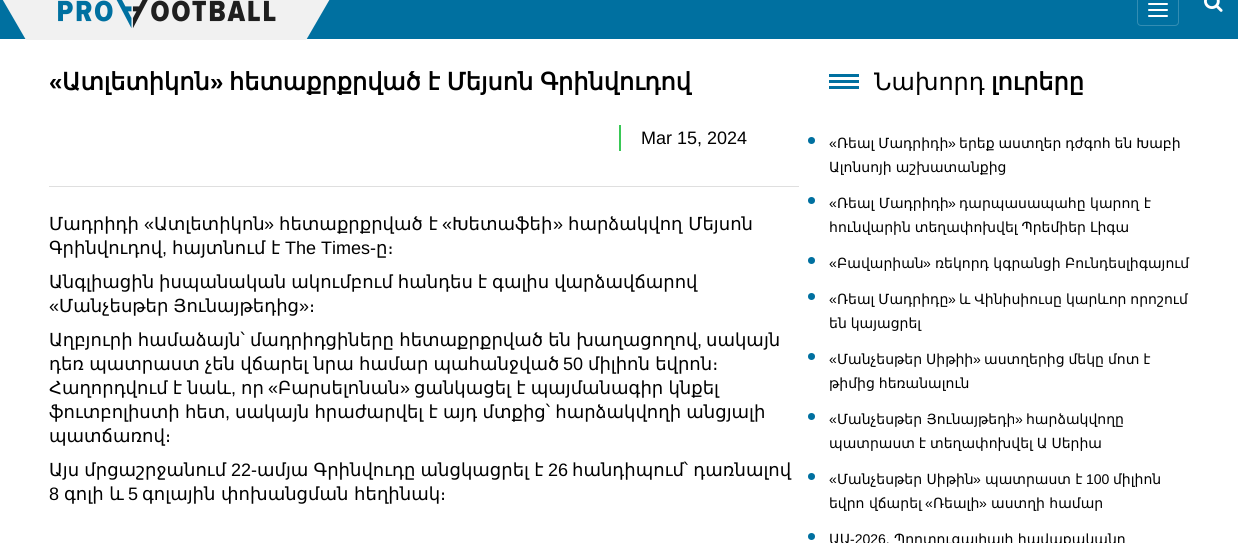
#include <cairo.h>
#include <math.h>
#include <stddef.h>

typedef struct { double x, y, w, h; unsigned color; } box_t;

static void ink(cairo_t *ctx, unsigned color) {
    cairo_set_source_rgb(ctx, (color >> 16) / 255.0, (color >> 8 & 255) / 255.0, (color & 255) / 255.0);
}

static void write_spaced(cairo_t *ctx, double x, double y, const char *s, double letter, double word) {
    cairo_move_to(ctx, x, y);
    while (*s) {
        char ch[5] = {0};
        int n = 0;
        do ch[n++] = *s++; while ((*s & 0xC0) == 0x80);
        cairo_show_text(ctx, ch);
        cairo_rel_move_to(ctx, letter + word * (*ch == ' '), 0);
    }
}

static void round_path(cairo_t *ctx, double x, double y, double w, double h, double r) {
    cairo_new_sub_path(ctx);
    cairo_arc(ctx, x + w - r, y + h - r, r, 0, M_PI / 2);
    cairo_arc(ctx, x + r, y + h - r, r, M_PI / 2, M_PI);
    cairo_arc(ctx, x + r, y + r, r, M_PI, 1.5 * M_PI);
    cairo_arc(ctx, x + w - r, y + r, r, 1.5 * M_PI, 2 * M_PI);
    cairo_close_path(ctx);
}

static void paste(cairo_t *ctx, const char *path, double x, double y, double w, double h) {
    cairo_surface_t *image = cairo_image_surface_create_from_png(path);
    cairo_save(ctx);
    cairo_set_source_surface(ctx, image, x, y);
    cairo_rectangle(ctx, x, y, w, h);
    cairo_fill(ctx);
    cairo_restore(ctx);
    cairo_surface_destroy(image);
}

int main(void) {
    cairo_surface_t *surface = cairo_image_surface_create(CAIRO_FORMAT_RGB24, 1238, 543);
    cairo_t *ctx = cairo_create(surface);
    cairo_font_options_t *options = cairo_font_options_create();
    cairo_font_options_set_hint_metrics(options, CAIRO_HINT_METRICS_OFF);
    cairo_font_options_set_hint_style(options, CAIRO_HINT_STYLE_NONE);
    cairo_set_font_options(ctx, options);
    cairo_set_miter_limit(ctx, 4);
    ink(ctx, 0xFFFFFF);
    cairo_paint(ctx);
    ink(ctx, 0x0070A0);
    cairo_rectangle(ctx, 0, 0, 1238, 39);
    cairo_fill(ctx);
    paste(ctx, "media/1.png", 2, 0, 328, 40);
    round_path(ctx, 1137.5, -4.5, 41, 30, 3.5);
    ink(ctx, 0x338DB3);
    cairo_set_line_width(ctx, 1);
    cairo_stroke(ctx);
    ink(ctx, 0xFFFFFF);
    round_path(ctx, 1148, 3, 20, 2, 1);
    cairo_fill(ctx);
    round_path(ctx, 1148, 9, 20, 2, 1);
    cairo_fill(ctx);
    round_path(ctx, 1148, 15, 20, 2, 1);
    cairo_fill(ctx);
    paste(ctx, "media/2.png", 1204, 0, 19, 12);
    cairo_select_font_face(ctx, "Liberation Sans", CAIRO_FONT_SLANT_NORMAL, CAIRO_FONT_WEIGHT_BOLD);
    cairo_set_font_size(ctx, 24);
    ink(ctx, 0x000000);
    cairo_move_to(ctx, 49, 90);
    cairo_show_text(ctx, "«");
    cairo_select_font_face(ctx, "DejaVu Sans", CAIRO_FONT_SLANT_NORMAL, CAIRO_FONT_WEIGHT_BOLD);
    cairo_move_to(ctx, 62, 90);
    cairo_show_text(ctx, "Ատլետիկոն");
    cairo_select_font_face(ctx, "Liberation Sans", CAIRO_FONT_SLANT_NORMAL, CAIRO_FONT_WEIGHT_BOLD);
    cairo_move_to(ctx, 210, 90);
    cairo_show_text(ctx, "»");
    cairo_select_font_face(ctx, "DejaVu Sans", CAIRO_FONT_SLANT_NORMAL, CAIRO_FONT_WEIGHT_BOLD);
    write_spaced(ctx, 229, 90, "հետաքրքրված է Մեյսոն Գրինվուդով", 0, -0.75);
    ink(ctx, 0x39C856);
    cairo_rectangle(ctx, 619, 125, 2, 26);
    cairo_fill(ctx);
    cairo_select_font_face(ctx, "Liberation Sans", CAIRO_FONT_SLANT_NORMAL, CAIRO_FONT_WEIGHT_NORMAL);
    cairo_set_font_size(ctx, 18);
    ink(ctx, 0x000000);
    cairo_move_to(ctx, 641, 144);
    cairo_show_text(ctx, "Mar 15, 2024");
    ink(ctx, 0xDFDFDF);
    cairo_rectangle(ctx, 49, 186, 750, 1);
    cairo_fill(ctx);
    cairo_select_font_face(ctx, "DejaVu Sans", CAIRO_FONT_SLANT_NORMAL, CAIRO_FONT_WEIGHT_NORMAL);
    ink(ctx, 0x000000);
    cairo_move_to(ctx, 49, 230);
    cairo_show_text(ctx, "Մադրիդի");
    cairo_select_font_face(ctx, "Liberation Sans", CAIRO_FONT_SLANT_NORMAL, CAIRO_FONT_WEIGHT_NORMAL);
    cairo_move_to(ctx, 144, 230);
    cairo_show_text(ctx, "«");
    cairo_select_font_face(ctx, "DejaVu Sans", CAIRO_FONT_SLANT_NORMAL, CAIRO_FONT_WEIGHT_NORMAL);
    cairo_move_to(ctx, 154, 230);
    cairo_show_text(ctx, "Ատլետիկոն");
    cairo_select_font_face(ctx, "Liberation Sans", CAIRO_FONT_SLANT_NORMAL, CAIRO_FONT_WEIGHT_NORMAL);
    cairo_move_to(ctx, 264, 230);
    cairo_show_text(ctx, "»");
    cairo_select_font_face(ctx, "DejaVu Sans", CAIRO_FONT_SLANT_NORMAL, CAIRO_FONT_WEIGHT_NORMAL);
    cairo_move_to(ctx, 279, 230);
    cairo_show_text(ctx, "հետաքրքրված է");
    cairo_select_font_face(ctx, "Liberation Sans", CAIRO_FONT_SLANT_NORMAL, CAIRO_FONT_WEIGHT_NORMAL);
    cairo_move_to(ctx, 442, 230);
    cairo_show_text(ctx, "«");
    cairo_select_font_face(ctx, "DejaVu Sans", CAIRO_FONT_SLANT_NORMAL, CAIRO_FONT_WEIGHT_NORMAL);
    cairo_move_to(ctx, 452, 230);
    cairo_show_text(ctx, "Խետաֆեի");
    cairo_select_font_face(ctx, "Liberation Sans", CAIRO_FONT_SLANT_NORMAL, CAIRO_FONT_WEIGHT_NORMAL);
    cairo_move_to(ctx, 553, 230);
    cairo_show_text(ctx, "»");
    cairo_select_font_face(ctx, "DejaVu Sans", CAIRO_FONT_SLANT_NORMAL, CAIRO_FONT_WEIGHT_NORMAL);
    cairo_move_to(ctx, 568, 230);
    cairo_show_text(ctx, "հարձակվող Մեյսոն");
    cairo_move_to(ctx, 49, 254);
    cairo_show_text(ctx, "Գրինվուդով");
    cairo_select_font_face(ctx, "Liberation Sans", CAIRO_FONT_SLANT_NORMAL, CAIRO_FONT_WEIGHT_NORMAL);
    cairo_move_to(ctx, 162, 254);
    cairo_show_text(ctx, ",");
    cairo_select_font_face(ctx, "DejaVu Sans", CAIRO_FONT_SLANT_NORMAL, CAIRO_FONT_WEIGHT_NORMAL);
    cairo_move_to(ctx, 172, 254);
    cairo_show_text(ctx, "հայտնում");
    cairo_move_to(ctx, 271, 254);
    cairo_show_text(ctx, "է");
    cairo_select_font_face(ctx, "Liberation Sans", CAIRO_FONT_SLANT_NORMAL, CAIRO_FONT_WEIGHT_NORMAL);
    cairo_move_to(ctx, 285, 254);
    cairo_show_text(ctx, "The Times-");
    cairo_select_font_face(ctx, "DejaVu Sans", CAIRO_FONT_SLANT_NORMAL, CAIRO_FONT_WEIGHT_NORMAL);
    cairo_move_to(ctx, 376, 254);
    cairo_show_text(ctx, "ը։");
    write_spaced(ctx, 49, 288, "Անգլիացին իսպանական ակումբում հանդես է գալիս վարձավճարով", 0, -0.75);
    cairo_select_font_face(ctx, "Liberation Sans", CAIRO_FONT_SLANT_NORMAL, CAIRO_FONT_WEIGHT_NORMAL);
    cairo_move_to(ctx, 49, 312);
    cairo_show_text(ctx, "«");
    cairo_select_font_face(ctx, "DejaVu Sans", CAIRO_FONT_SLANT_NORMAL, CAIRO_FONT_WEIGHT_NORMAL);
    write_spaced(ctx, 59, 312, "Մանչեսթեր Յունայթեդից", 0, -0.75);
    cairo_select_font_face(ctx, "Liberation Sans", CAIRO_FONT_SLANT_NORMAL, CAIRO_FONT_WEIGHT_NORMAL);
    cairo_move_to(ctx, 299, 312);
    cairo_show_text(ctx, "»");
    cairo_select_font_face(ctx, "DejaVu Sans", CAIRO_FONT_SLANT_NORMAL, CAIRO_FONT_WEIGHT_NORMAL);
    cairo_move_to(ctx, 309, 312);
    cairo_show_text(ctx, "։");
    write_spaced(ctx, 49, 346, "Աղբյուրի համաձայն՝ մադրիդցիները հետաքրքրված են խաղացողով", 0, -0.5);
    cairo_select_font_face(ctx, "Liberation Sans", CAIRO_FONT_SLANT_NORMAL, CAIRO_FONT_WEIGHT_NORMAL);
    cairo_move_to(ctx, 697, 346);
    cairo_show_text(ctx, ",");
    cairo_select_font_face(ctx, "DejaVu Sans", CAIRO_FONT_SLANT_NORMAL, CAIRO_FONT_WEIGHT_NORMAL);
    cairo_move_to(ctx, 706, 346);
    cairo_show_text(ctx, "սակայն");
    write_spaced(ctx, 49, 370, "դեռ պատրաստ չեն վճարել նրա համար պահանջված", 0, -0.5);
    cairo_select_font_face(ctx, "Liberation Sans", CAIRO_FONT_SLANT_NORMAL, CAIRO_FONT_WEIGHT_NORMAL);
    cairo_move_to(ctx, 563, 370);
    cairo_show_text(ctx, "50");
    cairo_select_font_face(ctx, "DejaVu Sans", CAIRO_FONT_SLANT_NORMAL, CAIRO_FONT_WEIGHT_NORMAL);
    write_spaced(ctx, 588, 370, "միլիոն եվրոն։", 0, -0.5);
    write_spaced(ctx, 49, 394, "Հաղորդվում է նաև", 0, -0.5);
    cairo_move_to(ctx, 241, 394);
    cairo_show_text(ctx, "որ");
    cairo_select_font_face(ctx, "Liberation Sans", CAIRO_FONT_SLANT_NORMAL, CAIRO_FONT_WEIGHT_NORMAL);
    cairo_move_to(ctx, 268, 394);
    cairo_show_text(ctx, "«");
    cairo_select_font_face(ctx, "DejaVu Sans", CAIRO_FONT_SLANT_NORMAL, CAIRO_FONT_WEIGHT_NORMAL);
    cairo_move_to(ctx, 278, 394);
    cairo_show_text(ctx, "Բարսելոնան");
    cairo_select_font_face(ctx, "Liberation Sans", CAIRO_FONT_SLANT_NORMAL, CAIRO_FONT_WEIGHT_NORMAL);
    cairo_move_to(ctx, 400, 394);
    cairo_show_text(ctx, "»");
    cairo_select_font_face(ctx, "DejaVu Sans", CAIRO_FONT_SLANT_NORMAL, CAIRO_FONT_WEIGHT_NORMAL);
    write_spaced(ctx, 414, 394, "ցանկացել է պայմանագիր կնքել", 0, -0.5);
    cairo_select_font_face(ctx, "Liberation Sans", CAIRO_FONT_SLANT_NORMAL, CAIRO_FONT_WEIGHT_NORMAL);
    cairo_move_to(ctx, 231, 394);
    cairo_show_text(ctx, ",");
    cairo_select_font_face(ctx, "DejaVu Sans", CAIRO_FONT_SLANT_NORMAL, CAIRO_FONT_WEIGHT_NORMAL);
    write_spaced(ctx, 49, 418, "ֆուտբոլիստի հետ", 0, -0.5);
    cairo_select_font_face(ctx, "Liberation Sans", CAIRO_FONT_SLANT_NORMAL, CAIRO_FONT_WEIGHT_NORMAL);
    cairo_move_to(ctx, 225, 418);
    cairo_show_text(ctx, ",");
    cairo_select_font_face(ctx, "DejaVu Sans", CAIRO_FONT_SLANT_NORMAL, CAIRO_FONT_WEIGHT_NORMAL);
    write_spaced(ctx, 235, 418, "սակայն հրաժարվել է այդ մտքից՝ հարձակվողի անցյալի", 0, -0.5);
    cairo_move_to(ctx, 49, 442);
    cairo_show_text(ctx, "պատճառով։");
    write_spaced(ctx, 49, 476, "Այս մրցաշրջանում", 0, -0.5);
    cairo_select_font_face(ctx, "Liberation Sans", CAIRO_FONT_SLANT_NORMAL, CAIRO_FONT_WEIGHT_NORMAL);
    cairo_move_to(ctx, 231, 476);
    cairo_show_text(ctx, "22-");
    cairo_select_font_face(ctx, "DejaVu Sans", CAIRO_FONT_SLANT_NORMAL, CAIRO_FONT_WEIGHT_NORMAL);
    write_spaced(ctx, 257, 476, "ամյա Գրինվուդը անցկացրել է", 0, -0.5);
    cairo_select_font_face(ctx, "Liberation Sans", CAIRO_FONT_SLANT_NORMAL, CAIRO_FONT_WEIGHT_NORMAL);
    cairo_move_to(ctx, 548, 476);
    cairo_show_text(ctx, "26");
    cairo_select_font_face(ctx, "DejaVu Sans", CAIRO_FONT_SLANT_NORMAL, CAIRO_FONT_WEIGHT_NORMAL);
    write_spaced(ctx, 572, 476, "հանդիպում՝ դառնալով", 0, -0.5);
    cairo_select_font_face(ctx, "Liberation Sans", CAIRO_FONT_SLANT_NORMAL, CAIRO_FONT_WEIGHT_NORMAL);
    cairo_move_to(ctx, 49, 500);
    cairo_show_text(ctx, "8");
    cairo_select_font_face(ctx, "DejaVu Sans", CAIRO_FONT_SLANT_NORMAL, CAIRO_FONT_WEIGHT_NORMAL);
    cairo_move_to(ctx, 64, 500);
    cairo_show_text(ctx, "գոլի և");
    cairo_select_font_face(ctx, "Liberation Sans", CAIRO_FONT_SLANT_NORMAL, CAIRO_FONT_WEIGHT_NORMAL);
    cairo_move_to(ctx, 128, 500);
    cairo_show_text(ctx, "5");
    cairo_select_font_face(ctx, "DejaVu Sans", CAIRO_FONT_SLANT_NORMAL, CAIRO_FONT_WEIGHT_NORMAL);
    cairo_move_to(ctx, 142, 500);
    cairo_show_text(ctx, "գոլային փոխանցման հեղինակ։");
    {
        static const box_t items[] = {
            {829, 74, 30, 3, 0x0070A0},
            {829, 80, 30, 3, 0x0070A0},
            {829, 86, 30, 3, 0x0070A0},
        };
        for (size_t i = 0; i < sizeof items / sizeof *items; i++) {
            ink(ctx, items[i].color);
            cairo_rectangle(ctx, items[i].x, items[i].y, items[i].w, items[i].h);
            cairo_fill(ctx);
        }
    }
    cairo_set_font_size(ctx, 24);
    ink(ctx, 0x000000);
    cairo_move_to(ctx, 874, 90);
    cairo_show_text(ctx, "Նախորդ");
    cairo_select_font_face(ctx, "DejaVu Sans", CAIRO_FONT_SLANT_NORMAL, CAIRO_FONT_WEIGHT_BOLD);
    cairo_move_to(ctx, 991, 90);
    cairo_show_text(ctx, "լուրերը");
    ink(ctx, 0x0070A0);
    cairo_new_path(ctx);
    cairo_arc(ctx, 811.5, 140.5, 3.5, 0, 2 * M_PI);
    cairo_fill(ctx);
    cairo_select_font_face(ctx, "Liberation Sans", CAIRO_FONT_SLANT_NORMAL, CAIRO_FONT_WEIGHT_NORMAL);
    cairo_set_font_size(ctx, 14);
    ink(ctx, 0x000000);
    cairo_move_to(ctx, 829, 148);
    cairo_show_text(ctx, "«");
    cairo_select_font_face(ctx, "DejaVu Sans", CAIRO_FONT_SLANT_NORMAL, CAIRO_FONT_WEIGHT_NORMAL);
    write_spaced(ctx, 837, 148, "Ռեալ Մադրիդի", 0, -0.5);
    cairo_select_font_face(ctx, "Liberation Sans", CAIRO_FONT_SLANT_NORMAL, CAIRO_FONT_WEIGHT_NORMAL);
    cairo_move_to(ctx, 948, 148);
    cairo_show_text(ctx, "»");
    cairo_select_font_face(ctx, "DejaVu Sans", CAIRO_FONT_SLANT_NORMAL, CAIRO_FONT_WEIGHT_NORMAL);
    write_spaced(ctx, 959, 148, "երեք աստղեր դժգոհ են Խաբի", 0, -0.5);
    write_spaced(ctx, 829, 172, "Ալոնսոյի աշխատանքից", 0, -0.5);
    ink(ctx, 0x0070A0);
    cairo_new_path(ctx);
    cairo_arc(ctx, 811.5, 200.5, 3.5, 0, 2 * M_PI);
    cairo_fill(ctx);
    cairo_select_font_face(ctx, "Liberation Sans", CAIRO_FONT_SLANT_NORMAL, CAIRO_FONT_WEIGHT_NORMAL);
    ink(ctx, 0x000000);
    cairo_move_to(ctx, 829, 208);
    cairo_show_text(ctx, "«");
    cairo_select_font_face(ctx, "DejaVu Sans", CAIRO_FONT_SLANT_NORMAL, CAIRO_FONT_WEIGHT_NORMAL);
    cairo_move_to(ctx, 837, 208);
    cairo_show_text(ctx, "Ռեալ Մադրիդի");
    cairo_select_font_face(ctx, "Liberation Sans", CAIRO_FONT_SLANT_NORMAL, CAIRO_FONT_WEIGHT_NORMAL);
    cairo_move_to(ctx, 948, 208);
    cairo_show_text(ctx, "»");
    cairo_select_font_face(ctx, "DejaVu Sans", CAIRO_FONT_SLANT_NORMAL, CAIRO_FONT_WEIGHT_NORMAL);
    cairo_move_to(ctx, 959, 208);
    cairo_show_text(ctx, "դարպասապահը կարող է");
    write_spaced(ctx, 829, 232, "հունվարին տեղափոխվել Պրեմիեր Լիգա", 0, -0.5);
    ink(ctx, 0x0070A0);
    cairo_new_path(ctx);
    cairo_arc(ctx, 811.5, 260.5, 3.5, 0, 2 * M_PI);
    cairo_fill(ctx);
    cairo_select_font_face(ctx, "Liberation Sans", CAIRO_FONT_SLANT_NORMAL, CAIRO_FONT_WEIGHT_NORMAL);
    ink(ctx, 0x000000);
    cairo_move_to(ctx, 829, 268);
    cairo_show_text(ctx, "«");
    cairo_select_font_face(ctx, "DejaVu Sans", CAIRO_FONT_SLANT_NORMAL, CAIRO_FONT_WEIGHT_NORMAL);
    cairo_move_to(ctx, 837, 268);
    cairo_show_text(ctx, "Բավարիան");
    cairo_select_font_face(ctx, "Liberation Sans", CAIRO_FONT_SLANT_NORMAL, CAIRO_FONT_WEIGHT_NORMAL);
    cairo_move_to(ctx, 923, 268);
    cairo_show_text(ctx, "»");
    cairo_select_font_face(ctx, "DejaVu Sans", CAIRO_FONT_SLANT_NORMAL, CAIRO_FONT_WEIGHT_NORMAL);
    cairo_move_to(ctx, 935, 268);
    cairo_show_text(ctx, "ռեկորդ կգրանցի Բունդեսլիգայում");
    ink(ctx, 0x0070A0);
    cairo_new_path(ctx);
    cairo_arc(ctx, 811.5, 296.5, 3.5, 0, 2 * M_PI);
    cairo_fill(ctx);
    cairo_select_font_face(ctx, "Liberation Sans", CAIRO_FONT_SLANT_NORMAL, CAIRO_FONT_WEIGHT_NORMAL);
    ink(ctx, 0x000000);
    cairo_move_to(ctx, 829, 304);
    cairo_show_text(ctx, "«");
    cairo_select_font_face(ctx, "DejaVu Sans", CAIRO_FONT_SLANT_NORMAL, CAIRO_FONT_WEIGHT_NORMAL);
    write_spaced(ctx, 837, 304, "Ռեալ Մադրիդը", 0, -0.5);
    cairo_select_font_face(ctx, "Liberation Sans", CAIRO_FONT_SLANT_NORMAL, CAIRO_FONT_WEIGHT_NORMAL);
    cairo_move_to(ctx, 948, 304);
    cairo_show_text(ctx, "»");
    cairo_select_font_face(ctx, "DejaVu Sans", CAIRO_FONT_SLANT_NORMAL, CAIRO_FONT_WEIGHT_NORMAL);
    write_spaced(ctx, 959, 304, "և Վինիսիուսը կարևոր որոշում", 0, -0.5);
    write_spaced(ctx, 829, 328, "են կայացրել", 0, -0.5);
    ink(ctx, 0x0070A0);
    cairo_new_path(ctx);
    cairo_arc(ctx, 811.5, 356.5, 3.5, 0, 2 * M_PI);
    cairo_fill(ctx);
    cairo_select_font_face(ctx, "Liberation Sans", CAIRO_FONT_SLANT_NORMAL, CAIRO_FONT_WEIGHT_NORMAL);
    ink(ctx, 0x000000);
    cairo_move_to(ctx, 829, 364);
    cairo_show_text(ctx, "«");
    cairo_select_font_face(ctx, "DejaVu Sans", CAIRO_FONT_SLANT_NORMAL, CAIRO_FONT_WEIGHT_NORMAL);
    write_spaced(ctx, 837, 364, "Մանչեսթեր Սիթիի", 0, -0.5);
    cairo_select_font_face(ctx, "Liberation Sans", CAIRO_FONT_SLANT_NORMAL, CAIRO_FONT_WEIGHT_NORMAL);
    cairo_move_to(ctx, 973, 364);
    cairo_show_text(ctx, "»");
    cairo_select_font_face(ctx, "DejaVu Sans", CAIRO_FONT_SLANT_NORMAL, CAIRO_FONT_WEIGHT_NORMAL);
    write_spaced(ctx, 984, 364, "աստղերից մեկը մոտ է", 0, -0.5);
    write_spaced(ctx, 829, 388, "թիմից հեռանալուն", 0, -0.5);
    ink(ctx, 0x0070A0);
    cairo_new_path(ctx);
    cairo_arc(ctx, 811.5, 416.5, 3.5, 0, 2 * M_PI);
    cairo_fill(ctx);
    cairo_select_font_face(ctx, "Liberation Sans", CAIRO_FONT_SLANT_NORMAL, CAIRO_FONT_WEIGHT_NORMAL);
    ink(ctx, 0x000000);
    cairo_move_to(ctx, 829, 424);
    cairo_show_text(ctx, "«");
    cairo_select_font_face(ctx, "DejaVu Sans", CAIRO_FONT_SLANT_NORMAL, CAIRO_FONT_WEIGHT_NORMAL);
    cairo_move_to(ctx, 837, 424);
    cairo_show_text(ctx, "Մանչեսթեր Յունայթեդի");
    cairo_select_font_face(ctx, "Liberation Sans", CAIRO_FONT_SLANT_NORMAL, CAIRO_FONT_WEIGHT_NORMAL);
    cairo_move_to(ctx, 1015, 424);
    cairo_show_text(ctx, "»");
    cairo_select_font_face(ctx, "DejaVu Sans", CAIRO_FONT_SLANT_NORMAL, CAIRO_FONT_WEIGHT_NORMAL);
    cairo_move_to(ctx, 1026, 424);
    cairo_show_text(ctx, "հարձակվողը");
    write_spaced(ctx, 829, 448, "պատրաստ է տեղափոխվել Ա Սերիա", 0, -0.5);
    ink(ctx, 0x0070A0);
    cairo_new_path(ctx);
    cairo_arc(ctx, 811.5, 476.5, 3.5, 0, 2 * M_PI);
    cairo_fill(ctx);
    cairo_select_font_face(ctx, "Liberation Sans", CAIRO_FONT_SLANT_NORMAL, CAIRO_FONT_WEIGHT_NORMAL);
    ink(ctx, 0x000000);
    cairo_move_to(ctx, 829, 484);
    cairo_show_text(ctx, "«");
    cairo_select_font_face(ctx, "DejaVu Sans", CAIRO_FONT_SLANT_NORMAL, CAIRO_FONT_WEIGHT_NORMAL);
    cairo_move_to(ctx, 837, 484);
    cairo_show_text(ctx, "Մանչեսթեր Սիթին");
    cairo_select_font_face(ctx, "Liberation Sans", CAIRO_FONT_SLANT_NORMAL, CAIRO_FONT_WEIGHT_NORMAL);
    cairo_move_to(ctx, 973, 484);
    cairo_show_text(ctx, "»");
    cairo_select_font_face(ctx, "DejaVu Sans", CAIRO_FONT_SLANT_NORMAL, CAIRO_FONT_WEIGHT_NORMAL);
    cairo_move_to(ctx, 985, 484);
    cairo_show_text(ctx, "պատրաստ է");
    cairo_select_font_face(ctx, "Liberation Sans", CAIRO_FONT_SLANT_NORMAL, CAIRO_FONT_WEIGHT_NORMAL);
    cairo_move_to(ctx, 1086, 484);
    cairo_show_text(ctx, "100");
    cairo_select_font_face(ctx, "DejaVu Sans", CAIRO_FONT_SLANT_NORMAL, CAIRO_FONT_WEIGHT_NORMAL);
    cairo_move_to(ctx, 1113, 484);
    cairo_show_text(ctx, "միլիոն");
    cairo_move_to(ctx, 829, 508);
    cairo_show_text(ctx, "եվրո վճարել");
    cairo_select_font_face(ctx, "Liberation Sans", CAIRO_FONT_SLANT_NORMAL, CAIRO_FONT_WEIGHT_NORMAL);
    cairo_move_to(ctx, 925, 508);
    cairo_show_text(ctx, "«");
    cairo_select_font_face(ctx, "DejaVu Sans", CAIRO_FONT_SLANT_NORMAL, CAIRO_FONT_WEIGHT_NORMAL);
    cairo_move_to(ctx, 933, 508);
    cairo_show_text(ctx, "Ռեալի");
    cairo_select_font_face(ctx, "Liberation Sans", CAIRO_FONT_SLANT_NORMAL, CAIRO_FONT_WEIGHT_NORMAL);
    cairo_move_to(ctx, 979, 508);
    cairo_show_text(ctx, "»");
    cairo_select_font_face(ctx, "DejaVu Sans", CAIRO_FONT_SLANT_NORMAL, CAIRO_FONT_WEIGHT_NORMAL);
    cairo_move_to(ctx, 991, 508);
    cairo_show_text(ctx, "աստղի համար");
    ink(ctx, 0x0070A0);
    cairo_new_path(ctx);
    cairo_arc(ctx, 811.5, 536.5, 3.5, 0, 2 * M_PI);
    cairo_fill(ctx);
    ink(ctx, 0x000000);
    cairo_move_to(ctx, 829, 544);
    cairo_show_text(ctx, "ԱԱ");
    cairo_select_font_face(ctx, "Liberation Sans", CAIRO_FONT_SLANT_NORMAL, CAIRO_FONT_WEIGHT_NORMAL);
    cairo_move_to(ctx, 850, 544);
    cairo_show_text(ctx, "-2026.");
    cairo_select_font_face(ctx, "DejaVu Sans", CAIRO_FONT_SLANT_NORMAL, CAIRO_FONT_WEIGHT_NORMAL);
    cairo_move_to(ctx, 894, 544);
    cairo_show_text(ctx, "Պորտուգալիայի հավաքականը");
    cairo_surface_write_to_png(surface, "image.png");
    cairo_font_options_destroy(options);
    cairo_destroy(ctx);
    cairo_surface_destroy(surface);
    return 0;
}
